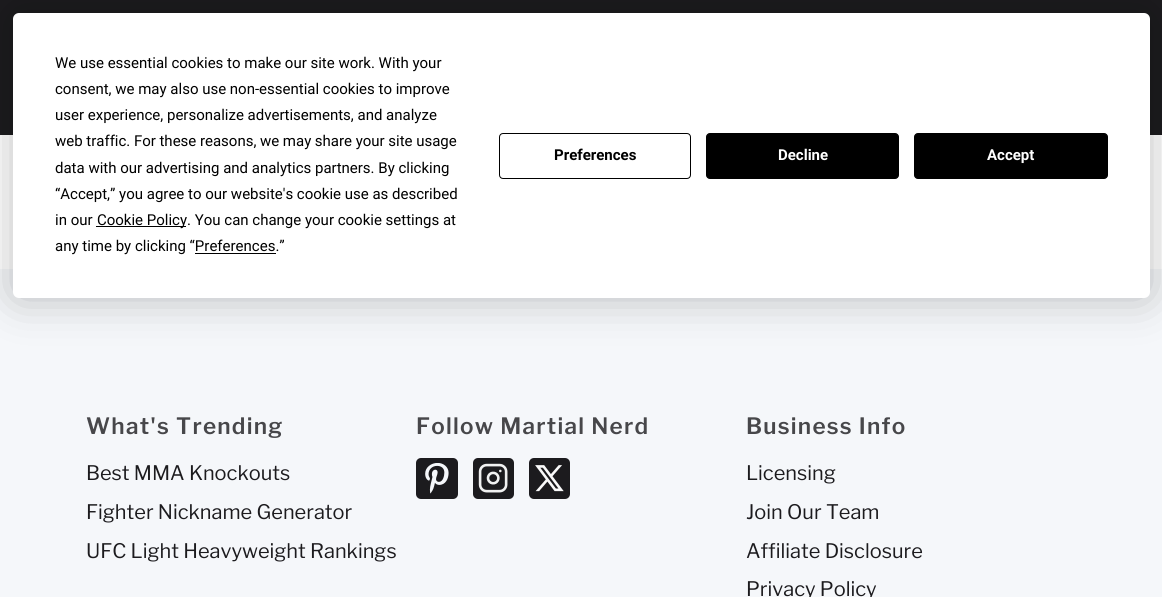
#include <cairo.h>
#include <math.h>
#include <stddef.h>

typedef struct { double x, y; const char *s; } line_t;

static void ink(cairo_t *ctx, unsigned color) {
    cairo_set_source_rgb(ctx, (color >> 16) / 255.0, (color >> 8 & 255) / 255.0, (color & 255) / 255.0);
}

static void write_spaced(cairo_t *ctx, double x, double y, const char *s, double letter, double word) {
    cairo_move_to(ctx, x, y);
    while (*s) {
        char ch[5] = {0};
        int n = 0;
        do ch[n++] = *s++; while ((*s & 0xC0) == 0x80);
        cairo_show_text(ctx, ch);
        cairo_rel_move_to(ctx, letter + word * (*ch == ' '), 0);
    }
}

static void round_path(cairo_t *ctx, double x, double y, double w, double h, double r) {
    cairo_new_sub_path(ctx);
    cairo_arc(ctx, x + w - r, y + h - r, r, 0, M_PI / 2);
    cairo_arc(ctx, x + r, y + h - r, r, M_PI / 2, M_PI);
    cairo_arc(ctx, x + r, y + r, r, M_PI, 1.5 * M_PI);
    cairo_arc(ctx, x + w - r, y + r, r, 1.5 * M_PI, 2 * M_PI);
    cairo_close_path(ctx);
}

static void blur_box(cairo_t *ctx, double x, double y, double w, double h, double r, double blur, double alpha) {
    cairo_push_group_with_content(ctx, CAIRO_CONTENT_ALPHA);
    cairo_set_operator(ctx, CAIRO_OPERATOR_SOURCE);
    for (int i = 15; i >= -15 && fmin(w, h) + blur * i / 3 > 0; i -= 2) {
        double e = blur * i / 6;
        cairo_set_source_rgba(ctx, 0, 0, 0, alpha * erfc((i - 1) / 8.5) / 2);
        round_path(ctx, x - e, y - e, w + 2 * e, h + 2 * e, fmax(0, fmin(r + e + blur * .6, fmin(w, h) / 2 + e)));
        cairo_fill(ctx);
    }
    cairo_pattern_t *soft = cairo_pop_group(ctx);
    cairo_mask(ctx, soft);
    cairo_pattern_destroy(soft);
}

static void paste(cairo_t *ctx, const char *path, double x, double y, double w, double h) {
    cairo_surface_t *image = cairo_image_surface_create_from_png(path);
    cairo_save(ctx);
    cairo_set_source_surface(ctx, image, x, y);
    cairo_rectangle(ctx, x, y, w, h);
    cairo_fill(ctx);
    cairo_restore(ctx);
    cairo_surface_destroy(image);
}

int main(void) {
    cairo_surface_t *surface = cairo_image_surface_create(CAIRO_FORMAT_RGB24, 1162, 597);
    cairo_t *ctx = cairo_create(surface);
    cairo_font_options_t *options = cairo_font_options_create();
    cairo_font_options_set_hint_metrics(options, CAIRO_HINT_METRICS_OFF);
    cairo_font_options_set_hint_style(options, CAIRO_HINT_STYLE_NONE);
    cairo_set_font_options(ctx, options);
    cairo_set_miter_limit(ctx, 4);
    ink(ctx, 0xFFFFFF);
    cairo_paint(ctx);
    ink(ctx, 0x1C1B1E);
    cairo_rectangle(ctx, 0, 0, 1162, 135);
    cairo_fill(ctx);
    ink(ctx, 0xF5F7FA);
    cairo_rectangle(ctx, 0, 269, 1162, 328);
    cairo_fill(ctx);
    ink(ctx, 0x000000);
    blur_box(ctx, 13, 13, 1137, 285, 6, 22, 0.25);
    ink(ctx, 0xFFFFFF);
    round_path(ctx, 13, 13, 1137, 285, 6);
    cairo_fill(ctx);
    cairo_select_font_face(ctx, "Roboto", CAIRO_FONT_SLANT_NORMAL, CAIRO_FONT_WEIGHT_NORMAL);
    cairo_set_font_size(ctx, 15);
    ink(ctx, 0x000000);
    {
        static const line_t items[] = {
            {55, 68, "We use essential cookies to make our site work. With your"},
            {55, 94, "consent, we may also use non-essential cookies to improve"},
            {55, 120, "user experience, personalize advertisements, and analyze"},
        };
        for (size_t i = 0; i < sizeof items / sizeof *items; i++) {
            cairo_move_to(ctx, items[i].x, items[i].y);
            cairo_show_text(ctx, items[i].s);
        }
    }
    write_spaced(ctx, 55, 146, "web traffic. For these reasons, we may share your site usage", 0, -0.1);
    {
        static const line_t items[] = {
            {55, 173, "data with our advertising and analytics partners. By clicking"},
            {55, 199, "“Accept,” you agree to our website's cookie use as described"},
            {55, 225, "in our"},
        };
        for (size_t i = 0; i < sizeof items / sizeof *items; i++) {
            cairo_move_to(ctx, items[i].x, items[i].y);
            cairo_show_text(ctx, items[i].s);
        }
    }
    cairo_rectangle(ctx, 96, 226, 90, 1);
    cairo_fill(ctx);
    cairo_move_to(ctx, 97, 225);
    cairo_show_text(ctx, "Cookie Policy. You can change your cookie settings at");
    cairo_move_to(ctx, 55, 251);
    cairo_show_text(ctx, "any time by clicking “Preferences.”");
    cairo_rectangle(ctx, 195, 253, 81, 1);
    cairo_fill(ctx);
    round_path(ctx, 499.5, 133.5, 191, 45, 3.5);
    cairo_set_line_width(ctx, 1);
    cairo_stroke(ctx);
    cairo_select_font_face(ctx, "Roboto", CAIRO_FONT_SLANT_NORMAL, CAIRO_FONT_WEIGHT_BOLD);
    cairo_move_to(ctx, 554, 160);
    cairo_show_text(ctx, "Preferences");
    round_path(ctx, 706.5, 133.5, 192, 45, 3.5);
    cairo_fill_preserve(ctx);
    cairo_stroke(ctx);
    ink(ctx, 0xFFFFFF);
    cairo_move_to(ctx, 778, 160);
    cairo_show_text(ctx, "Decline");
    ink(ctx, 0x000000);
    round_path(ctx, 914.5, 133.5, 193, 45, 3.5);
    cairo_fill_preserve(ctx);
    cairo_stroke(ctx);
    ink(ctx, 0xFFFFFF);
    cairo_move_to(ctx, 987, 160);
    cairo_show_text(ctx, "Accept");
    cairo_select_font_face(ctx, "Libre Franklin SemiBold", CAIRO_FONT_SLANT_NORMAL, CAIRO_FONT_WEIGHT_NORMAL);
    cairo_set_font_size(ctx, 22.5);
    ink(ctx, 0x47474A);
    write_spaced(ctx, 86, 434, "What's Trending", 1.25, 0);
    cairo_select_font_face(ctx, "Libre Franklin", CAIRO_FONT_SLANT_NORMAL, CAIRO_FONT_WEIGHT_NORMAL);
    cairo_set_font_size(ctx, 20);
    ink(ctx, 0x1C1B1E);
    {
        static const line_t items[] = {
            {86, 480, "Best MMA Knockouts"},
            {86, 519, "Fighter Nickname Generator"},
            {86, 558, "UFC Light Heavyweight Rankings"},
        };
        for (size_t i = 0; i < sizeof items / sizeof *items; i++) {
            cairo_move_to(ctx, items[i].x, items[i].y);
            cairo_show_text(ctx, items[i].s);
        }
    }
    cairo_select_font_face(ctx, "Libre Franklin SemiBold", CAIRO_FONT_SLANT_NORMAL, CAIRO_FONT_WEIGHT_NORMAL);
    cairo_set_font_size(ctx, 22.5);
    ink(ctx, 0x47474A);
    write_spaced(ctx, 416, 434, "Follow Martial Nerd", 1.25, 0);
    ink(ctx, 0x1C1B1E);
    round_path(ctx, 416, 458, 42, 41, 5);
    cairo_fill(ctx);
    paste(ctx, "media/1.png", 425, 463, 24, 31);
    round_path(ctx, 473, 458, 41, 41, 5);
    cairo_fill(ctx);
    paste(ctx, "media/2.png", 478, 463, 30, 30);
    round_path(ctx, 529, 458, 41, 41, 5);
    cairo_fill(ctx);
    paste(ctx, "media/3.png", 535, 465, 29, 27);
    ink(ctx, 0x47474A);
    write_spaced(ctx, 746, 434, "Business Info", 1.25, 0);
    cairo_select_font_face(ctx, "Libre Franklin", CAIRO_FONT_SLANT_NORMAL, CAIRO_FONT_WEIGHT_NORMAL);
    cairo_set_font_size(ctx, 20);
    ink(ctx, 0x1C1B1E);
    {
        static const line_t items[] = {
            {746, 480, "Licensing"},
            {746, 519, "Join Our Team"},
            {746, 558, "Affiliate Disclosure"},
            {746, 596, "Privacy Policy"},
        };
        for (size_t i = 0; i < sizeof items / sizeof *items; i++) {
            cairo_move_to(ctx, items[i].x, items[i].y);
            cairo_show_text(ctx, items[i].s);
        }
    }
    cairo_surface_write_to_png(surface, "image.png");
    cairo_font_options_destroy(options);
    cairo_destroy(ctx);
    cairo_surface_destroy(surface);
    return 0;
}
